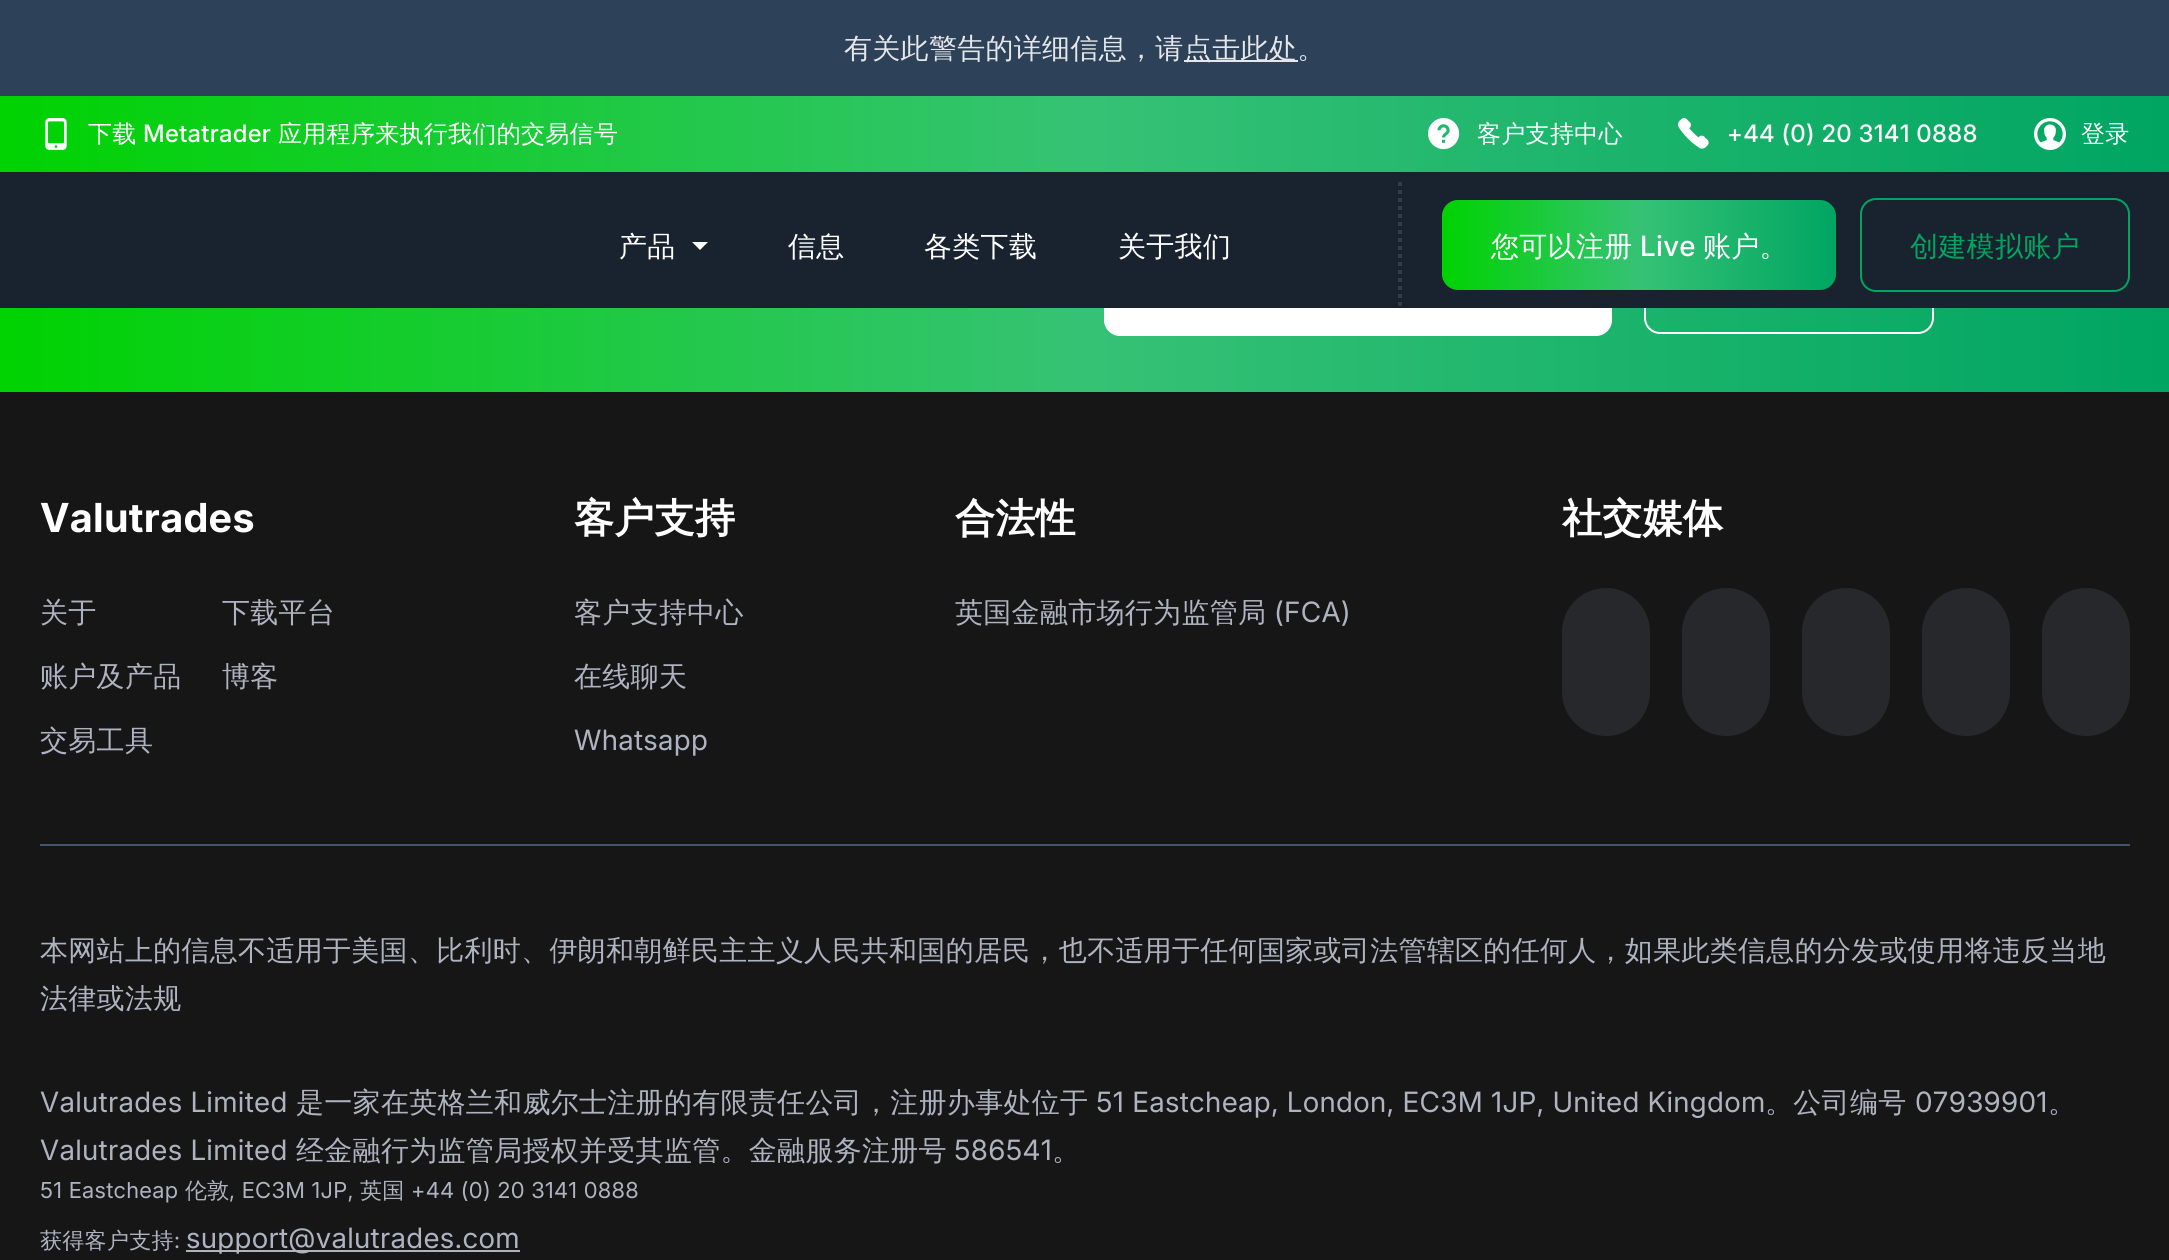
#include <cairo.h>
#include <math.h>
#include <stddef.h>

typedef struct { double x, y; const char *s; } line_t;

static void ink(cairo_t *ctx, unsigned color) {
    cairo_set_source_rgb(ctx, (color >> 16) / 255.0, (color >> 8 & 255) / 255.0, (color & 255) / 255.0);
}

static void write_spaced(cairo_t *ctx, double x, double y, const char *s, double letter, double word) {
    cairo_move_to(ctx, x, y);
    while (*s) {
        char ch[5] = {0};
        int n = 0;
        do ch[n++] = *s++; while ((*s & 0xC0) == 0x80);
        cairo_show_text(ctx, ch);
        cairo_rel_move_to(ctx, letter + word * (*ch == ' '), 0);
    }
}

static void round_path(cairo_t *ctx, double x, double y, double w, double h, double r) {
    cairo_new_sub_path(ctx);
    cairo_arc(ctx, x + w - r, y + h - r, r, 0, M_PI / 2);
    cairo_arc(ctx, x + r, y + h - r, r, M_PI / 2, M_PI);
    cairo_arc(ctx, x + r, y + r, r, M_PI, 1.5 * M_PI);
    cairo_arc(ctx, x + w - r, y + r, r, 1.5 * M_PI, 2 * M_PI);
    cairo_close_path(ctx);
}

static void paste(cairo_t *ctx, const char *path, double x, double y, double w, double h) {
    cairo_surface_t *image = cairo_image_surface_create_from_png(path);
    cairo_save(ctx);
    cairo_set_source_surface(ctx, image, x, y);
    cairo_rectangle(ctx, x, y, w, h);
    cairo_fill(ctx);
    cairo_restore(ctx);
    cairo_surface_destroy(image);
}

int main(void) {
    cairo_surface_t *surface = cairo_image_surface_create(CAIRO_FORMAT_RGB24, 2169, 1260);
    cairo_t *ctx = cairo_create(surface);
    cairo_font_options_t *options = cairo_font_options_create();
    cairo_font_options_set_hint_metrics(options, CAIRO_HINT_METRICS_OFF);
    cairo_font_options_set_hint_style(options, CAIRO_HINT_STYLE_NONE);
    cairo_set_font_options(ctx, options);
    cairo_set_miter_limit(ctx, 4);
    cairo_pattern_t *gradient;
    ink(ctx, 0xFFFFFF);
    cairo_paint(ctx);
    gradient = cairo_pattern_create_linear(0, 288, 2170, 288);
    cairo_pattern_add_color_stop_rgba(gradient, 0, 0, 0.827, 0.004, 1);
    cairo_pattern_add_color_stop_rgba(gradient, 0.5, 0.212, 0.761, 0.459, 1);
    cairo_pattern_add_color_stop_rgba(gradient, 1, 0, 0.647, 0.384, 1);
    cairo_set_source(ctx, gradient);
    cairo_pattern_destroy(gradient);
    cairo_rectangle(ctx, 0, 308, 2169, 84);
    cairo_fill(ctx);
    ink(ctx, 0xFFFFFF);
    round_path(ctx, 1104, 240, 508, 96, 16);
    cairo_fill(ctx);
    round_path(ctx, 1645, 241, 288, 92, 15);
    cairo_stroke(ctx);
    ink(ctx, 0x18232F);
    cairo_rectangle(ctx, 0, 172, 2169, 136);
    cairo_fill(ctx);
    ink(ctx, 0x2D4158);
    cairo_rectangle(ctx, 0, 0, 2169, 96);
    cairo_fill(ctx);
    cairo_select_font_face(ctx, "WenQuanYi Zen Hei Medium", CAIRO_FONT_SLANT_NORMAL, CAIRO_FONT_WEIGHT_NORMAL);
    cairo_set_font_size(ctx, 28);
    ink(ctx, 0xE5E7EB);
    write_spaced(ctx, 844, 58, "有关此警告的详细信息，请", 0.3, 0);
    cairo_rectangle(ctx, 1184, 60, 114, 2);
    cairo_fill(ctx);
    write_spaced(ctx, 1184, 58, "点击此处。", 0.3, 0);
    gradient = cairo_pattern_create_linear(0, 134, 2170, 134);
    cairo_pattern_add_color_stop_rgba(gradient, 0, 0, 0.827, 0.004, 1);
    cairo_pattern_add_color_stop_rgba(gradient, 0.5, 0.212, 0.761, 0.459, 1);
    cairo_pattern_add_color_stop_rgba(gradient, 1, 0, 0.647, 0.384, 1);
    cairo_set_source(ctx, gradient);
    cairo_pattern_destroy(gradient);
    cairo_rectangle(ctx, 0, 96, 2169, 76);
    cairo_fill(ctx);
    paste(ctx, "media/1.png", 45, 118, 22, 32);
    cairo_set_font_size(ctx, 24);
    ink(ctx, 0xFFFFFF);
    write_spaced(ctx, 88, 142, "下载", 0.3, 0);
    cairo_select_font_face(ctx, "Inter Medium", CAIRO_FONT_SLANT_NORMAL, CAIRO_FONT_WEIGHT_NORMAL);
    write_spaced(ctx, 143, 142, "Metatrader", 0.3, 0);
    cairo_select_font_face(ctx, "WenQuanYi Zen Hei Medium", CAIRO_FONT_SLANT_NORMAL, CAIRO_FONT_WEIGHT_NORMAL);
    write_spaced(ctx, 278, 142, "应用程序来执行我们的交易信号", 0.3, 0);
    paste(ctx, "media/2.png", 1428, 118, 32, 32);
    write_spaced(ctx, 1477, 142, "客户支持中心", 0.3, 0);
    paste(ctx, "media/3.png", 1678, 118, 31, 31);
    cairo_select_font_face(ctx, "Inter Medium", CAIRO_FONT_SLANT_NORMAL, CAIRO_FONT_WEIGHT_NORMAL);
    write_spaced(ctx, 1727, 142, "+44 (0) 20 3141 0888", 0.3, 0);
    paste(ctx, "media/4.png", 2034, 118, 32, 32);
    cairo_select_font_face(ctx, "WenQuanYi Zen Hei Medium", CAIRO_FONT_SLANT_NORMAL, CAIRO_FONT_WEIGHT_NORMAL);
    write_spaced(ctx, 2081, 142, "登录", 0.3, 0);
    cairo_new_path(ctx);
    cairo_move_to(ctx, 1400, 182);
    cairo_line_to(ctx, 1400, 308);
    ink(ctx, 0x353B43);
    cairo_set_line_width(ctx, 4);
    cairo_set_dash(ctx, (double[]){4, 4}, 2, 0);
    cairo_stroke(ctx);
    cairo_set_font_size(ctx, 28);
    ink(ctx, 0xFFFFFF);
    write_spaced(ctx, 619, 256, "产品", 0.3, 0);
    cairo_new_path(ctx);
    cairo_move_to(ctx, 692, 242);
    cairo_line_to(ctx, 700, 250);
    cairo_line_to(ctx, 708, 242);
    cairo_close_path(ctx);
    cairo_fill(ctx);
    {
        static const line_t items[] = {
            {788, 256, "信息"},
            {924, 256, "各类下载"},
            {1118, 256, "关于我们"},
        };
        for (size_t i = 0; i < sizeof items / sizeof *items; i++) {
            write_spaced(ctx, items[i].x, items[i].y, items[i].s, 0.3, 0);
        }
    }
    gradient = cairo_pattern_create_linear(1442, 245, 1836, 245);
    cairo_pattern_add_color_stop_rgba(gradient, 0, 0, 0.827, 0.004, 1);
    cairo_pattern_add_color_stop_rgba(gradient, 0.5, 0.212, 0.761, 0.459, 1);
    cairo_pattern_add_color_stop_rgba(gradient, 1, 0, 0.647, 0.384, 1);
    cairo_set_source(ctx, gradient);
    cairo_pattern_destroy(gradient);
    round_path(ctx, 1442, 200, 394, 90, 16);
    cairo_fill(ctx);
    ink(ctx, 0xFFFFFF);
    write_spaced(ctx, 1491, 256, "您可以注册", 0.3, 0);
    cairo_select_font_face(ctx, "Inter Medium", CAIRO_FONT_SLANT_NORMAL, CAIRO_FONT_WEIGHT_NORMAL);
    write_spaced(ctx, 1640, 256, "Live", 0.3, 0);
    cairo_select_font_face(ctx, "WenQuanYi Zen Hei Medium", CAIRO_FONT_SLANT_NORMAL, CAIRO_FONT_WEIGHT_NORMAL);
    write_spaced(ctx, 1703, 256, "账户。", 0.3, 0);
    round_path(ctx, 1861, 199, 268, 92, 15);
    ink(ctx, 0x00A562);
    cairo_set_line_width(ctx, 2);
    cairo_set_dash(ctx, NULL, 0, 0);
    cairo_stroke(ctx);
    write_spaced(ctx, 1910, 256, "创建模拟账户", 0.3, 0);
    ink(ctx, 0x161616);
    cairo_rectangle(ctx, 0, 392, 2169, 868);
    cairo_fill(ctx);
    cairo_select_font_face(ctx, "Inter", CAIRO_FONT_SLANT_NORMAL, CAIRO_FONT_WEIGHT_BOLD);
    cairo_set_font_size(ctx, 40);
    ink(ctx, 0xFFFFFF);
    write_spaced(ctx, 40, 532, "Valutrades", 0.3, 0);
    cairo_select_font_face(ctx, "WenQuanYi Zen Hei Medium", CAIRO_FONT_SLANT_NORMAL, CAIRO_FONT_WEIGHT_NORMAL);
    cairo_set_font_size(ctx, 28);
    ink(ctx, 0xADB3C0);
    {
        static const line_t items[] = {
            {40, 622, "关于"},
            {222, 622, "下载平台"},
            {40, 686, "账户及产品"},
            {222, 686, "博客"},
            {40, 750, "交易工具"},
        };
        for (size_t i = 0; i < sizeof items / sizeof *items; i++) {
            write_spaced(ctx, items[i].x, items[i].y, items[i].s, 0.3, 0);
        }
    }
    cairo_select_font_face(ctx, "WenQuanYi Zen Hei", CAIRO_FONT_SLANT_NORMAL, CAIRO_FONT_WEIGHT_BOLD);
    cairo_set_font_size(ctx, 40);
    ink(ctx, 0xFFFFFF);
    write_spaced(ctx, 574, 532, "客户支持", 0.3, 0);
    cairo_select_font_face(ctx, "WenQuanYi Zen Hei Medium", CAIRO_FONT_SLANT_NORMAL, CAIRO_FONT_WEIGHT_NORMAL);
    cairo_set_font_size(ctx, 28);
    ink(ctx, 0xADB3C0);
    write_spaced(ctx, 574, 622, "客户支持中心", 0.3, 0);
    write_spaced(ctx, 574, 686, "在线聊天", 0.3, 0);
    cairo_select_font_face(ctx, "Inter", CAIRO_FONT_SLANT_NORMAL, CAIRO_FONT_WEIGHT_NORMAL);
    write_spaced(ctx, 574, 750, "Whatsapp", 0.3, 0);
    cairo_select_font_face(ctx, "WenQuanYi Zen Hei", CAIRO_FONT_SLANT_NORMAL, CAIRO_FONT_WEIGHT_BOLD);
    cairo_set_font_size(ctx, 40);
    ink(ctx, 0xFFFFFF);
    write_spaced(ctx, 955, 532, "合法性", 0.3, 0);
    cairo_select_font_face(ctx, "WenQuanYi Zen Hei Medium", CAIRO_FONT_SLANT_NORMAL, CAIRO_FONT_WEIGHT_NORMAL);
    cairo_set_font_size(ctx, 28);
    ink(ctx, 0xADB3C0);
    write_spaced(ctx, 955, 622, "英国金融市场行为监管局", 0.3, 0);
    cairo_select_font_face(ctx, "Inter", CAIRO_FONT_SLANT_NORMAL, CAIRO_FONT_WEIGHT_NORMAL);
    write_spaced(ctx, 1274, 622, "(FCA)", 0.3, 0);
    cairo_select_font_face(ctx, "WenQuanYi Zen Hei", CAIRO_FONT_SLANT_NORMAL, CAIRO_FONT_WEIGHT_BOLD);
    cairo_set_font_size(ctx, 40);
    ink(ctx, 0xFFFFFF);
    write_spaced(ctx, 1562, 532, "社交媒体", 0.3, 0);
    ink(ctx, 0x26282C);
    round_path(ctx, 1562, 588, 88, 148, 44);
    cairo_fill(ctx);
    round_path(ctx, 1682, 588, 88, 148, 44);
    cairo_fill(ctx);
    round_path(ctx, 1802, 588, 88, 148, 44);
    cairo_fill(ctx);
    round_path(ctx, 1922, 588, 88, 148, 44);
    cairo_fill(ctx);
    round_path(ctx, 2042, 588, 88, 148, 44);
    cairo_fill(ctx);
    ink(ctx, 0x45526C);
    cairo_rectangle(ctx, 40, 844, 2090, 2);
    cairo_fill(ctx);
    cairo_select_font_face(ctx, "WenQuanYi Zen Hei Medium", CAIRO_FONT_SLANT_NORMAL, CAIRO_FONT_WEIGHT_NORMAL);
    cairo_set_font_size(ctx, 28);
    ink(ctx, 0xADB3C0);
    write_spaced(ctx, 40, 960, "本网站上的信息不适用于美国、比利时、伊朗和朝鲜民主主义人民共和国的居民，也不适用于任何国家或司法管辖区的任何人，如果此类信息的分发或使用将违反当地", 0.3, 0);
    write_spaced(ctx, 40, 1008, "法律或法规", 0.3, 0);
    cairo_select_font_face(ctx, "Inter", CAIRO_FONT_SLANT_NORMAL, CAIRO_FONT_WEIGHT_NORMAL);
    write_spaced(ctx, 40, 1112, "Valutrades Limited", 0.3, 0);
    cairo_select_font_face(ctx, "WenQuanYi Zen Hei Medium", CAIRO_FONT_SLANT_NORMAL, CAIRO_FONT_WEIGHT_NORMAL);
    write_spaced(ctx, 296, 1112, "是一家在英格兰和威尔士注册的有限责任公司，注册办事处位于", 0.3, 0);
    cairo_select_font_face(ctx, "Inter", CAIRO_FONT_SLANT_NORMAL, CAIRO_FONT_WEIGHT_NORMAL);
    write_spaced(ctx, 1096, 1112, "51 Eastcheap, London, EC3M 1JP, United Kingdom", 0.3, 0);
    cairo_select_font_face(ctx, "WenQuanYi Zen Hei Medium", CAIRO_FONT_SLANT_NORMAL, CAIRO_FONT_WEIGHT_NORMAL);
    write_spaced(ctx, 1765, 1112, "。公司编号", 0.3, 0);
    cairo_select_font_face(ctx, "Inter", CAIRO_FONT_SLANT_NORMAL, CAIRO_FONT_WEIGHT_NORMAL);
    write_spaced(ctx, 1915, 1112, "07939901", 0.3, 0);
    cairo_select_font_face(ctx, "WenQuanYi Zen Hei Medium", CAIRO_FONT_SLANT_NORMAL, CAIRO_FONT_WEIGHT_NORMAL);
    write_spaced(ctx, 2048, 1112, "。", 0.3, 0);
    cairo_select_font_face(ctx, "Inter", CAIRO_FONT_SLANT_NORMAL, CAIRO_FONT_WEIGHT_NORMAL);
    write_spaced(ctx, 40, 1160, "Valutrades Limited", 0.3, 0);
    cairo_select_font_face(ctx, "WenQuanYi Zen Hei Medium", CAIRO_FONT_SLANT_NORMAL, CAIRO_FONT_WEIGHT_NORMAL);
    write_spaced(ctx, 296, 1160, "经金融行为监管局授权并受其监管。金融服务注册号", 0.3, 0);
    cairo_select_font_face(ctx, "Inter", CAIRO_FONT_SLANT_NORMAL, CAIRO_FONT_WEIGHT_NORMAL);
    write_spaced(ctx, 954, 1160, "586541", 0.3, 0);
    cairo_select_font_face(ctx, "WenQuanYi Zen Hei Medium", CAIRO_FONT_SLANT_NORMAL, CAIRO_FONT_WEIGHT_NORMAL);
    write_spaced(ctx, 1052, 1160, "。", 0.3, 0);
    cairo_select_font_face(ctx, "Inter", CAIRO_FONT_SLANT_NORMAL, CAIRO_FONT_WEIGHT_NORMAL);
    cairo_set_font_size(ctx, 22);
    write_spaced(ctx, 40, 1198, "51 Eastcheap", 0.3, 0);
    cairo_select_font_face(ctx, "WenQuanYi Zen Hei Medium", CAIRO_FONT_SLANT_NORMAL, CAIRO_FONT_WEIGHT_NORMAL);
    write_spaced(ctx, 185, 1198, "伦敦", 0.3, 0);
    cairo_select_font_face(ctx, "Inter", CAIRO_FONT_SLANT_NORMAL, CAIRO_FONT_WEIGHT_NORMAL);
    write_spaced(ctx, 229, 1198, ", EC3M 1JP,", 0.3, 0);
    cairo_select_font_face(ctx, "WenQuanYi Zen Hei Medium", CAIRO_FONT_SLANT_NORMAL, CAIRO_FONT_WEIGHT_NORMAL);
    write_spaced(ctx, 360, 1198, "英国", 0.3, 0);
    cairo_select_font_face(ctx, "Inter", CAIRO_FONT_SLANT_NORMAL, CAIRO_FONT_WEIGHT_NORMAL);
    write_spaced(ctx, 411, 1198, "+44 (0) 20 3141 0888", 0.3, 0);
    cairo_select_font_face(ctx, "WenQuanYi Zen Hei Medium", CAIRO_FONT_SLANT_NORMAL, CAIRO_FONT_WEIGHT_NORMAL);
    write_spaced(ctx, 40, 1248, "获得客户支持", 0.3, 0);
    cairo_select_font_face(ctx, "Inter", CAIRO_FONT_SLANT_NORMAL, CAIRO_FONT_WEIGHT_NORMAL);
    write_spaced(ctx, 174, 1248, ":", 0.3, 0);
    cairo_rectangle(ctx, 186, 1250, 334, 2);
    cairo_fill(ctx);
    cairo_set_font_size(ctx, 28);
    write_spaced(ctx, 186, 1248, "support@valutrades.com", 0.3, 0);
    cairo_surface_write_to_png(surface, "image.png");
    cairo_font_options_destroy(options);
    cairo_destroy(ctx);
    cairo_surface_destroy(surface);
    return 0;
}
